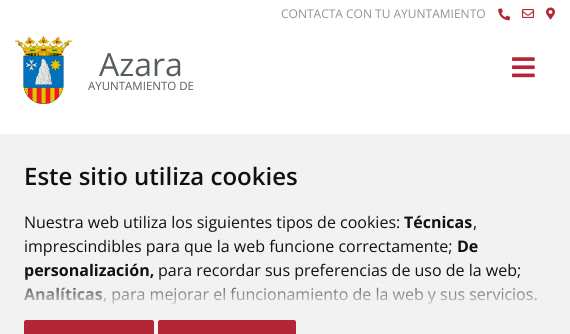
#include <cairo.h>
#include <math.h>
#include <stddef.h>


static void ink(cairo_t *ctx, unsigned color) {
    cairo_set_source_rgb(ctx, (color >> 16) / 255.0, (color >> 8 & 255) / 255.0, (color & 255) / 255.0);
}

static void paste(cairo_t *ctx, const char *path, double x, double y, double w, double h) {
    cairo_surface_t *image = cairo_image_surface_create_from_png(path);
    cairo_save(ctx);
    cairo_set_source_surface(ctx, image, x, y);
    cairo_rectangle(ctx, x, y, w, h);
    cairo_fill(ctx);
    cairo_restore(ctx);
    cairo_surface_destroy(image);
}

int main(void) {
    cairo_surface_t *surface = cairo_image_surface_create(CAIRO_FORMAT_RGB24, 570, 334);
    cairo_t *ctx = cairo_create(surface);
    cairo_font_options_t *options = cairo_font_options_create();
    cairo_font_options_set_hint_metrics(options, CAIRO_HINT_METRICS_OFF);
    cairo_font_options_set_hint_style(options, CAIRO_HINT_STYLE_NONE);
    cairo_set_font_options(ctx, options);
    cairo_set_miter_limit(ctx, 4);
    cairo_pattern_t *gradient;
    ink(ctx, 0xFFFFFF);
    cairo_paint(ctx);
    cairo_select_font_face(ctx, "Open Sans", CAIRO_FONT_SLANT_NORMAL, CAIRO_FONT_WEIGHT_NORMAL);
    cairo_set_font_size(ctx, 12);
    ink(ctx, 0x949494);
    cairo_move_to(ctx, 281, 18);
    cairo_show_text(ctx, "CONTACTA CON TU AYUNTAMIENTO");
    paste(ctx, "media/1.png", 498, 8, 13, 13);
    paste(ctx, "media/2.png", 522, 9, 12, 9);
    paste(ctx, "media/3.png", 546, 7, 9, 13);
    paste(ctx, "media/4.png", 15, 36, 57, 68);
    cairo_set_font_size(ctx, 32);
    ink(ctx, 0x565D5E);
    cairo_move_to(ctx, 99, 76);
    cairo_show_text(ctx, "Azara");
    cairo_set_font_size(ctx, 11.5);
    cairo_move_to(ctx, 88, 90);
    cairo_show_text(ctx, "AYUNTAMIENTO DE");
    paste(ctx, "media/5.png", 512, 57, 23, 21);
    ink(ctx, 0xF2F2F2);
    cairo_rectangle(ctx, 0, 134, 570, 200);
    cairo_fill(ctx);
    cairo_select_font_face(ctx, "Open Sans SemiBold", CAIRO_FONT_SLANT_NORMAL, CAIRO_FONT_WEIGHT_NORMAL);
    cairo_set_font_size(ctx, 24);
    ink(ctx, 0x111111);
    cairo_move_to(ctx, 24, 185);
    cairo_show_text(ctx, "Este sitio utiliza cookies");
    cairo_select_font_face(ctx, "Open Sans", CAIRO_FONT_SLANT_NORMAL, CAIRO_FONT_WEIGHT_NORMAL);
    cairo_set_font_size(ctx, 16);
    cairo_move_to(ctx, 24, 228);
    cairo_show_text(ctx, "Nuestra web utiliza los siguientes tipos de cookies:");
    cairo_select_font_face(ctx, "Open Sans", CAIRO_FONT_SLANT_NORMAL, CAIRO_FONT_WEIGHT_BOLD);
    cairo_move_to(ctx, 404, 228);
    cairo_show_text(ctx, "Técnicas");
    cairo_select_font_face(ctx, "Open Sans", CAIRO_FONT_SLANT_NORMAL, CAIRO_FONT_WEIGHT_NORMAL);
    cairo_move_to(ctx, 473, 228);
    cairo_show_text(ctx, ",");
    cairo_move_to(ctx, 24, 252);
    cairo_show_text(ctx, "imprescindibles para que la web funcione correctamente;");
    cairo_select_font_face(ctx, "Open Sans", CAIRO_FONT_SLANT_NORMAL, CAIRO_FONT_WEIGHT_BOLD);
    cairo_move_to(ctx, 457, 252);
    cairo_show_text(ctx, "De");
    cairo_move_to(ctx, 24, 276);
    cairo_show_text(ctx, "personalización,");
    cairo_select_font_face(ctx, "Open Sans", CAIRO_FONT_SLANT_NORMAL, CAIRO_FONT_WEIGHT_NORMAL);
    cairo_move_to(ctx, 158, 276);
    cairo_show_text(ctx, "para recordar sus preferencias de uso de la web;");
    cairo_select_font_face(ctx, "Open Sans", CAIRO_FONT_SLANT_NORMAL, CAIRO_FONT_WEIGHT_BOLD);
    cairo_move_to(ctx, 24, 300);
    cairo_show_text(ctx, "Analíticas");
    cairo_select_font_face(ctx, "Open Sans", CAIRO_FONT_SLANT_NORMAL, CAIRO_FONT_WEIGHT_NORMAL);
    cairo_move_to(ctx, 103, 300);
    cairo_show_text(ctx, ", para mejorar el funcionamiento de la web y sus servicios.");
    gradient = cairo_pattern_create_linear(285, 275, 285, 310);
    cairo_pattern_add_color_stop_rgba(gradient, 0, 0.949, 0.949, 0.949, 0);
    cairo_pattern_add_color_stop_rgba(gradient, 1, 0.949, 0.949, 0.949, 1);
    cairo_set_source(ctx, gradient);
    cairo_pattern_destroy(gradient);
    cairo_rectangle(ctx, 24, 276, 512, 28);
    cairo_fill(ctx);
    ink(ctx, 0xB42637);
    cairo_new_path(ctx);
    cairo_move_to(ctx, 26, 320);
    cairo_line_to(ctx, 152, 320);
    cairo_curve_to(ctx, 153, 320, 154, 321, 154, 322);
    cairo_line_to(ctx, 154, 334);
    cairo_line_to(ctx, 24, 334);
    cairo_line_to(ctx, 24, 322);
    cairo_curve_to(ctx, 24, 321, 25, 320, 26, 320);
    cairo_close_path(ctx);
    cairo_fill(ctx);
    cairo_new_path(ctx);
    cairo_move_to(ctx, 160, 320);
    cairo_line_to(ctx, 294, 320);
    cairo_curve_to(ctx, 295, 320, 296, 321, 296, 322);
    cairo_line_to(ctx, 296, 334);
    cairo_line_to(ctx, 158, 334);
    cairo_line_to(ctx, 158, 322);
    cairo_curve_to(ctx, 158, 321, 159, 320, 160, 320);
    cairo_close_path(ctx);
    cairo_fill(ctx);
    cairo_surface_write_to_png(surface, "image.png");
    cairo_font_options_destroy(options);
    cairo_destroy(ctx);
    cairo_surface_destroy(surface);
    return 0;
}
